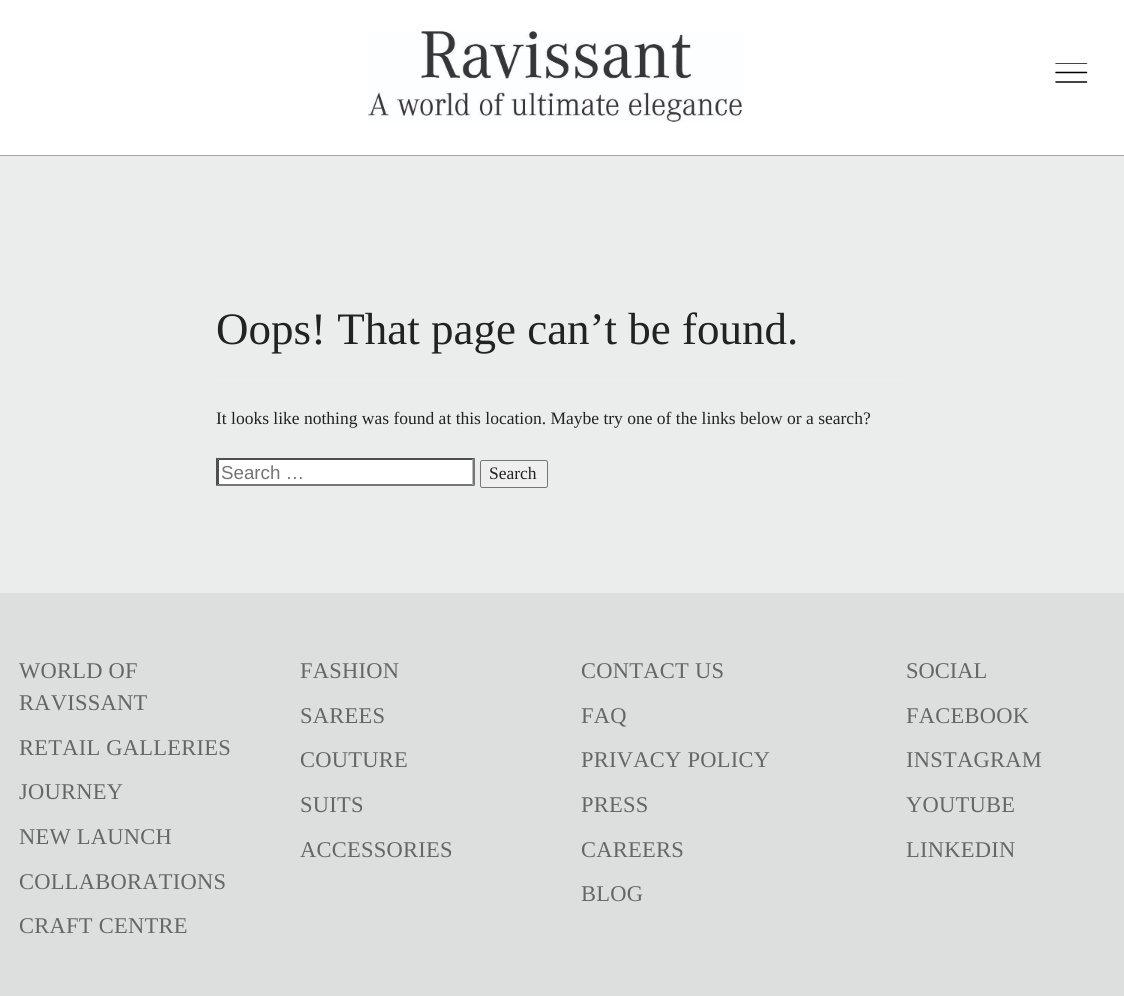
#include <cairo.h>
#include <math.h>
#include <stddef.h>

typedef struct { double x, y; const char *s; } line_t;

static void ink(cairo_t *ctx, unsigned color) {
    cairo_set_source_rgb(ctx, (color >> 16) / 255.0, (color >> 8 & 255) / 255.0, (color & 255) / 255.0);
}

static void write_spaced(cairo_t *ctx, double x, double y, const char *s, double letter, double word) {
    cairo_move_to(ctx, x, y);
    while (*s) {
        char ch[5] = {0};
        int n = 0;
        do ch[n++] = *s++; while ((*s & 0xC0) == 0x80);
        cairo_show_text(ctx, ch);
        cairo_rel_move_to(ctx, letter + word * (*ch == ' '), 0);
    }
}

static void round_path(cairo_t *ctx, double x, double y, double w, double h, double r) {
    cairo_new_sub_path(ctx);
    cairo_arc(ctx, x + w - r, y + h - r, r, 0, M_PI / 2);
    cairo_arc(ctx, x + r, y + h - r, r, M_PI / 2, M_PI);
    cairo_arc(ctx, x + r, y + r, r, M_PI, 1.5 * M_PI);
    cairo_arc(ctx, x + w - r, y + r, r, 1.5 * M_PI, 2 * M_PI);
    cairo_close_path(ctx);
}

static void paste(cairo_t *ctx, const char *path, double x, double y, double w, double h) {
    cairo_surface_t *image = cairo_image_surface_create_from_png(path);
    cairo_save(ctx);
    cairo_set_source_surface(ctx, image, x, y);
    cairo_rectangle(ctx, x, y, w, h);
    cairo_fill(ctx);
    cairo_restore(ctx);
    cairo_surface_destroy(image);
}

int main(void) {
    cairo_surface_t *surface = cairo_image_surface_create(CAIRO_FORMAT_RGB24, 1124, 996);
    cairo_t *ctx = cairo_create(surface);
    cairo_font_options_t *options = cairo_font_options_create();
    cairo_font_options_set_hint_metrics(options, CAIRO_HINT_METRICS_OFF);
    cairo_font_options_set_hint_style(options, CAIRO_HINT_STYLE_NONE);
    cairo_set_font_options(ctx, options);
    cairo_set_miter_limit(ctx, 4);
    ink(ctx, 0xFFFFFF);
    cairo_paint(ctx);
    ink(ctx, 0xA6A6A6);
    cairo_rectangle(ctx, 0, 155, 1124, 1);
    cairo_fill(ctx);
    paste(ctx, "media/1.png", 367, 31, 376, 91);
    cairo_save(ctx);
    cairo_rectangle(ctx, 1055, 63, 33, 20);
    cairo_clip(ctx);
    cairo_new_path(ctx);
    cairo_move_to(ctx, 1056, 63);
    cairo_line_to(ctx, 1086.5, 63);
    ink(ctx, 0x000000);
    cairo_set_line_width(ctx, 1.5);
    cairo_set_line_cap(ctx, CAIRO_LINE_CAP_ROUND);
    cairo_stroke(ctx);
    cairo_restore(ctx);
    cairo_new_path(ctx);
    cairo_move_to(ctx, 1056, 72.5);
    cairo_line_to(ctx, 1086.5, 72.5);
    cairo_move_to(ctx, 1056, 82);
    cairo_line_to(ctx, 1086.5, 82);
    ink(ctx, 0x000000);
    cairo_set_line_width(ctx, 1.5);
    cairo_set_line_cap(ctx, CAIRO_LINE_CAP_ROUND);
    cairo_stroke(ctx);
    ink(ctx, 0xEBECEC);
    cairo_rectangle(ctx, 0, 156, 1124, 437);
    cairo_fill(ctx);
    ink(ctx, 0xEEEEEE);
    cairo_rectangle(ctx, 216, 379, 693, 1);
    cairo_fill(ctx);
    cairo_select_font_face(ctx, "Liberation Serif", CAIRO_FONT_SLANT_NORMAL, CAIRO_FONT_WEIGHT_NORMAL);
    cairo_set_font_size(ctx, 45);
    ink(ctx, 0x222222);
    cairo_move_to(ctx, 216, 344);
    cairo_show_text(ctx, "Oops! That page can’t be found.");
    cairo_set_font_size(ctx, 17.5);
    cairo_move_to(ctx, 216, 424);
    cairo_show_text(ctx, "It looks like nothing was found at this location. Maybe try one of the links below or a search?");
    ink(ctx, 0xFFFFFF);
    cairo_rectangle(ctx, 216, 458, 259, 28);
    cairo_fill(ctx);
    ink(ctx, 0x4F4F4F);
    cairo_new_path(ctx);
    cairo_move_to(ctx, 216, 458);
    cairo_line_to(ctx, 475, 458);
    cairo_line_to(ctx, 472, 460);
    cairo_line_to(ctx, 219, 460);
    cairo_close_path(ctx);
    cairo_fill(ctx);
    ink(ctx, 0x767676);
    cairo_new_path(ctx);
    cairo_move_to(ctx, 475, 457.5);
    cairo_line_to(ctx, 475, 486);
    cairo_line_to(ctx, 472.5, 484);
    cairo_line_to(ctx, 472.5, 460);
    cairo_close_path(ctx);
    cairo_fill(ctx);
    cairo_new_path(ctx);
    cairo_move_to(ctx, 475, 486);
    cairo_line_to(ctx, 216, 486);
    cairo_line_to(ctx, 219, 484);
    cairo_line_to(ctx, 472, 484);
    cairo_close_path(ctx);
    cairo_fill(ctx);
    ink(ctx, 0x4F4F4F);
    cairo_new_path(ctx);
    cairo_move_to(ctx, 216, 486);
    cairo_line_to(ctx, 216, 457.5);
    cairo_line_to(ctx, 219, 460);
    cairo_line_to(ctx, 219, 484);
    cairo_close_path(ctx);
    cairo_fill(ctx);
    cairo_select_font_face(ctx, "Liberation Sans", CAIRO_FONT_SLANT_NORMAL, CAIRO_FONT_WEIGHT_NORMAL);
    cairo_set_font_size(ctx, 18.75);
    ink(ctx, 0x757575);
    cairo_move_to(ctx, 221, 479);
    cairo_show_text(ctx, "Search …");
    ink(ctx, 0xEFEFEF);
    round_path(ctx, 480.5, 460.5, 67, 27, 2);
    cairo_fill_preserve(ctx);
    ink(ctx, 0x767676);
    cairo_set_line_width(ctx, 1);
    cairo_set_line_cap(ctx, CAIRO_LINE_CAP_BUTT);
    cairo_stroke(ctx);
    cairo_select_font_face(ctx, "Liberation Serif", CAIRO_FONT_SLANT_NORMAL, CAIRO_FONT_WEIGHT_NORMAL);
    cairo_set_font_size(ctx, 17.5);
    ink(ctx, 0x222222);
    cairo_move_to(ctx, 489, 479);
    cairo_show_text(ctx, "Search");
    ink(ctx, 0xDDDEDE);
    cairo_rectangle(ctx, 0, 593, 1124, 403);
    cairo_fill(ctx);
    cairo_set_font_size(ctx, 22.5);
    ink(ctx, 0x666666);
    {
        static const line_t items[] = {
            {19, 678, "WORLD OF"},
            {19, 710, "RAVISSANT"},
            {19, 755, "RETAIL GALLERIES"},
            {19, 799, "JOURNEY"},
            {19, 844, "NEW LAUNCH"},
            {19, 889, "COLLABORATIONS"},
            {19, 933, "CRAFT CENTRE"},
            {300, 678, "FASHION"},
            {300, 723, "SAREES"},
            {300, 767, "COUTURE"},
            {300, 812, "SUITS"},
            {300, 857, "ACCESSORIES"},
            {581, 678, "CONTACT US"},
            {581, 723, "FAQ"},
            {581, 767, "PRIVACY POLICY"},
            {581, 812, "PRESS"},
            {581, 857, "CAREERS"},
            {581, 901, "BLOG"},
        };
        for (size_t i = 0; i < sizeof items / sizeof *items; i++) {
            write_spaced(ctx, items[i].x, items[i].y, items[i].s, 0.25, 0);
        }
    }
    cairo_move_to(ctx, 906, 678);
    cairo_show_text(ctx, "SOCIAL");
    {
        static const line_t items[] = {
            {906, 723, "FACEBOOK"},
            {906, 767, "INSTAGRAM"},
            {906, 812, "YOUTUBE"},
            {906, 857, "LINKEDIN"},
        };
        for (size_t i = 0; i < sizeof items / sizeof *items; i++) {
            write_spaced(ctx, items[i].x, items[i].y, items[i].s, 0.25, 0);
        }
    }
    cairo_surface_write_to_png(surface, "image.png");
    cairo_font_options_destroy(options);
    cairo_destroy(ctx);
    cairo_surface_destroy(surface);
    return 0;
}
